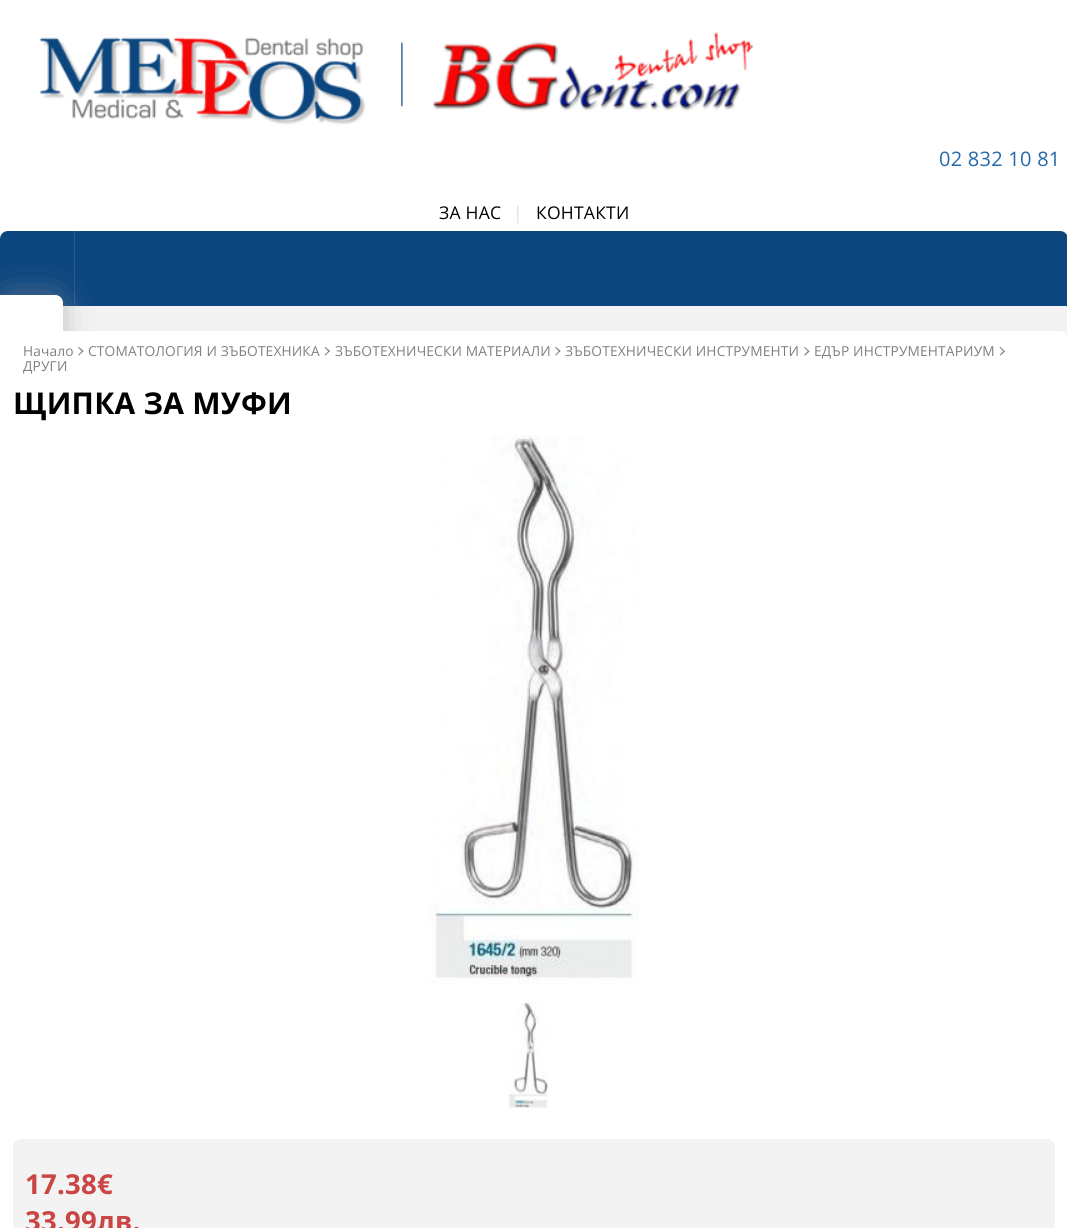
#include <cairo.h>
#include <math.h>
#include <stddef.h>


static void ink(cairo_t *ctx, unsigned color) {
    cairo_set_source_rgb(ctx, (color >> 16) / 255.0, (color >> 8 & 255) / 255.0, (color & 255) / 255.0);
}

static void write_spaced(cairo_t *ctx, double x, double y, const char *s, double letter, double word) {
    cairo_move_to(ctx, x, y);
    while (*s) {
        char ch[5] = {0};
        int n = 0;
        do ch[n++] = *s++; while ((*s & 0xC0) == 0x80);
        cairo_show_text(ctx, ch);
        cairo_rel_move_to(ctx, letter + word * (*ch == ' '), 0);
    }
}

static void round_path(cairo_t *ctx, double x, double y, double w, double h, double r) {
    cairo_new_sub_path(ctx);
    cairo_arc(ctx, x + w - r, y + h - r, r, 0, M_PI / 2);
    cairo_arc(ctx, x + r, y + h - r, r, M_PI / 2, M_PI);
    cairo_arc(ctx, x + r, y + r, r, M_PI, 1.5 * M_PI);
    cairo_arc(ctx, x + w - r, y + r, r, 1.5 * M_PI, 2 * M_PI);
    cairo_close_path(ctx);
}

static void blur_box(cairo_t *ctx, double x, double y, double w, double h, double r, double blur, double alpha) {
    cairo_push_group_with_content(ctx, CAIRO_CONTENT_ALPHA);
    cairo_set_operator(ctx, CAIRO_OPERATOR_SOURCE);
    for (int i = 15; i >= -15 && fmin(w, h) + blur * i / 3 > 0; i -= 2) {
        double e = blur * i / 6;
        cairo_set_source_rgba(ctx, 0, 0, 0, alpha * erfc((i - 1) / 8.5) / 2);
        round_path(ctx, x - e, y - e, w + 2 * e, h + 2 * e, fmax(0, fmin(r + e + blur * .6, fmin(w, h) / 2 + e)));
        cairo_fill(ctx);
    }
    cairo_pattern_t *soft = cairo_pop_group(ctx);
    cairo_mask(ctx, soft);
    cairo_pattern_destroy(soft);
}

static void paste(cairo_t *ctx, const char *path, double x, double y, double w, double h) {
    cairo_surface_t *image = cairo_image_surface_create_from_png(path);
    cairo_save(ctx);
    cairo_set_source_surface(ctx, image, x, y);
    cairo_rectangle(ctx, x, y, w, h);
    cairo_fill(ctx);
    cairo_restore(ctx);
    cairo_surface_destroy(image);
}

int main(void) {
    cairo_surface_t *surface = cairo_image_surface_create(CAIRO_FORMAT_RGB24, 1067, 1228);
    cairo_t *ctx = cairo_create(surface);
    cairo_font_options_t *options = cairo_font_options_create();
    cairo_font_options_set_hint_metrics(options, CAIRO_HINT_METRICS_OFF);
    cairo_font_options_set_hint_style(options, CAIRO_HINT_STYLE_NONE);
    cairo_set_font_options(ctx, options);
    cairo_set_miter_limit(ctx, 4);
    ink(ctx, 0xF3F3F3);
    cairo_paint(ctx);
    ink(ctx, 0xFFFFFF);
    cairo_rectangle(ctx, 0, 0, 1067, 239);
    cairo_fill(ctx);
    paste(ctx, "media/1.png", 39, 32, 714, 93);
    cairo_select_font_face(ctx, "Open Sans", CAIRO_FONT_SLANT_NORMAL, CAIRO_FONT_WEIGHT_NORMAL);
    cairo_set_font_size(ctx, 20);
    ink(ctx, 0x2469AC);
    write_spaced(ctx, 939, 166, "02 832 10 81", 0.25, 0);
    cairo_set_font_size(ctx, 17.5);
    ink(ctx, 0x000000);
    write_spaced(ctx, 439, 219, "ЗА НАС", 0.25, 0);
    ink(ctx, 0xDDDDDD);
    write_spaced(ctx, 513, 219, "|", 0.25, 0);
    ink(ctx, 0x000000);
    write_spaced(ctx, 536, 219, "КОНТАКТИ", 0.25, 0);
    ink(ctx, 0x0C467F);
    cairo_new_path(ctx);
    cairo_move_to(ctx, 8, 231);
    cairo_line_to(ctx, 1060, 231);
    cairo_curve_to(ctx, 1064.5, 231, 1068, 234.5, 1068, 239);
    cairo_line_to(ctx, 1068, 306);
    cairo_line_to(ctx, 0, 306);
    cairo_line_to(ctx, 0, 239);
    cairo_curve_to(ctx, 0, 234.5, 3.5, 231, 8, 231);
    cairo_close_path(ctx);
    cairo_fill(ctx);
    ink(ctx, 0x2F568C);
    cairo_rectangle(ctx, 74, 231, 1, 75);
    cairo_fill(ctx);
    ink(ctx, 0x999999);
    blur_box(ctx, 10, 305, 43, 105, 0, 19, 1);
    ink(ctx, 0xFFFFFF);
    cairo_new_path(ctx);
    cairo_move_to(ctx, 0, 295);
    cairo_line_to(ctx, 55, 295);
    cairo_curve_to(ctx, 59.5, 295, 63, 298.5, 63, 303);
    cairo_line_to(ctx, 63, 412);
    cairo_curve_to(ctx, 63, 416.5, 59.5, 420, 55, 420);
    cairo_line_to(ctx, 0, 420);
    cairo_close_path(ctx);
    cairo_fill(ctx);
    round_path(ctx, 0, 331, 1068, 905, 8);
    cairo_fill(ctx);
    cairo_set_font_size(ctx, 13.75);
    ink(ctx, 0x808080);
    write_spaced(ctx, 23, 356, "Начало", 0.15, 0);
    cairo_new_path(ctx);
    cairo_move_to(ctx, 78, 347.5);
    cairo_line_to(ctx, 79, 347);
    cairo_line_to(ctx, 83.5, 351);
    cairo_line_to(ctx, 82.5, 352);
    cairo_close_path(ctx);
    cairo_fill(ctx);
    cairo_new_path(ctx);
    cairo_move_to(ctx, 78, 355);
    cairo_line_to(ctx, 82.5, 350.5);
    cairo_line_to(ctx, 83.5, 351);
    cairo_line_to(ctx, 79, 355.5);
    cairo_close_path(ctx);
    cairo_fill(ctx);
    write_spaced(ctx, 88, 356, "СТОМАТОЛОГИЯ И ЗЪБОТЕХНИКА", 0.15, 0);
    cairo_new_path(ctx);
    cairo_move_to(ctx, 324.5, 347.5);
    cairo_line_to(ctx, 325.5, 347);
    cairo_line_to(ctx, 330, 351);
    cairo_line_to(ctx, 329, 352);
    cairo_close_path(ctx);
    cairo_fill(ctx);
    cairo_new_path(ctx);
    cairo_move_to(ctx, 324.5, 355);
    cairo_line_to(ctx, 329, 350.5);
    cairo_line_to(ctx, 330, 351);
    cairo_line_to(ctx, 325.5, 355.5);
    cairo_close_path(ctx);
    cairo_fill(ctx);
    write_spaced(ctx, 335, 356, "ЗЪБОТЕХНИЧЕСКИ МАТЕРИАЛИ", 0.15, 0);
    cairo_new_path(ctx);
    cairo_move_to(ctx, 555, 347.5);
    cairo_line_to(ctx, 556, 347);
    cairo_line_to(ctx, 560.5, 351);
    cairo_line_to(ctx, 559.5, 352);
    cairo_close_path(ctx);
    cairo_fill(ctx);
    cairo_new_path(ctx);
    cairo_move_to(ctx, 555, 355);
    cairo_line_to(ctx, 559.5, 350.5);
    cairo_line_to(ctx, 560.5, 351);
    cairo_line_to(ctx, 556, 355.5);
    cairo_close_path(ctx);
    cairo_fill(ctx);
    write_spaced(ctx, 565, 356, "ЗЪБОТЕХНИЧЕСКИ ИНСТРУМЕНТИ", 0.15, 0);
    cairo_new_path(ctx);
    cairo_move_to(ctx, 804, 347.5);
    cairo_line_to(ctx, 805, 347);
    cairo_line_to(ctx, 809.5, 351.5);
    cairo_line_to(ctx, 808.5, 352);
    cairo_close_path(ctx);
    cairo_fill(ctx);
    cairo_new_path(ctx);
    cairo_move_to(ctx, 804, 355);
    cairo_line_to(ctx, 808.5, 350.5);
    cairo_line_to(ctx, 809.5, 351.5);
    cairo_line_to(ctx, 805, 355.5);
    cairo_close_path(ctx);
    cairo_fill(ctx);
    write_spaced(ctx, 814, 356, "ЕДЪР ИНСТРУМЕНТАРИУМ", 0.15, 0);
    cairo_new_path(ctx);
    cairo_move_to(ctx, 999.5, 347.5);
    cairo_line_to(ctx, 1000.5, 347);
    cairo_line_to(ctx, 1005, 351.5);
    cairo_line_to(ctx, 1004, 352);
    cairo_close_path(ctx);
    cairo_fill(ctx);
    cairo_new_path(ctx);
    cairo_move_to(ctx, 999.5, 355);
    cairo_line_to(ctx, 1004, 350.5);
    cairo_line_to(ctx, 1005, 351.5);
    cairo_line_to(ctx, 1000.5, 355.5);
    cairo_close_path(ctx);
    cairo_fill(ctx);
    write_spaced(ctx, 23, 371, "ДРУГИ", 0.15, 0);
    cairo_select_font_face(ctx, "Open Sans", CAIRO_FONT_SLANT_NORMAL, CAIRO_FONT_WEIGHT_BOLD);
    cairo_set_font_size(ctx, 30);
    ink(ctx, 0x000000);
    write_spaced(ctx, 13, 414, "ЩИПКА ЗА МУФИ", 0.25, 0);
    paste(ctx, "media/2.png", 429, 435, 210, 550);
    paste(ctx, "media/3.png", 508, 1002, 40, 106);
    ink(ctx, 0xF3F3F3);
    round_path(ctx, 13, 1139, 1042, 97, 8);
    cairo_fill(ctx);
    cairo_set_font_size(ctx, 27.5);
    ink(ctx, 0xCC4545);
    write_spaced(ctx, 25, 1194, "17.38€", 0.25, 0);
    write_spaced(ctx, 25, 1231, "33.99лв.", 0.25, 0);
    cairo_surface_write_to_png(surface, "image.png");
    cairo_font_options_destroy(options);
    cairo_destroy(ctx);
    cairo_surface_destroy(surface);
    return 0;
}
